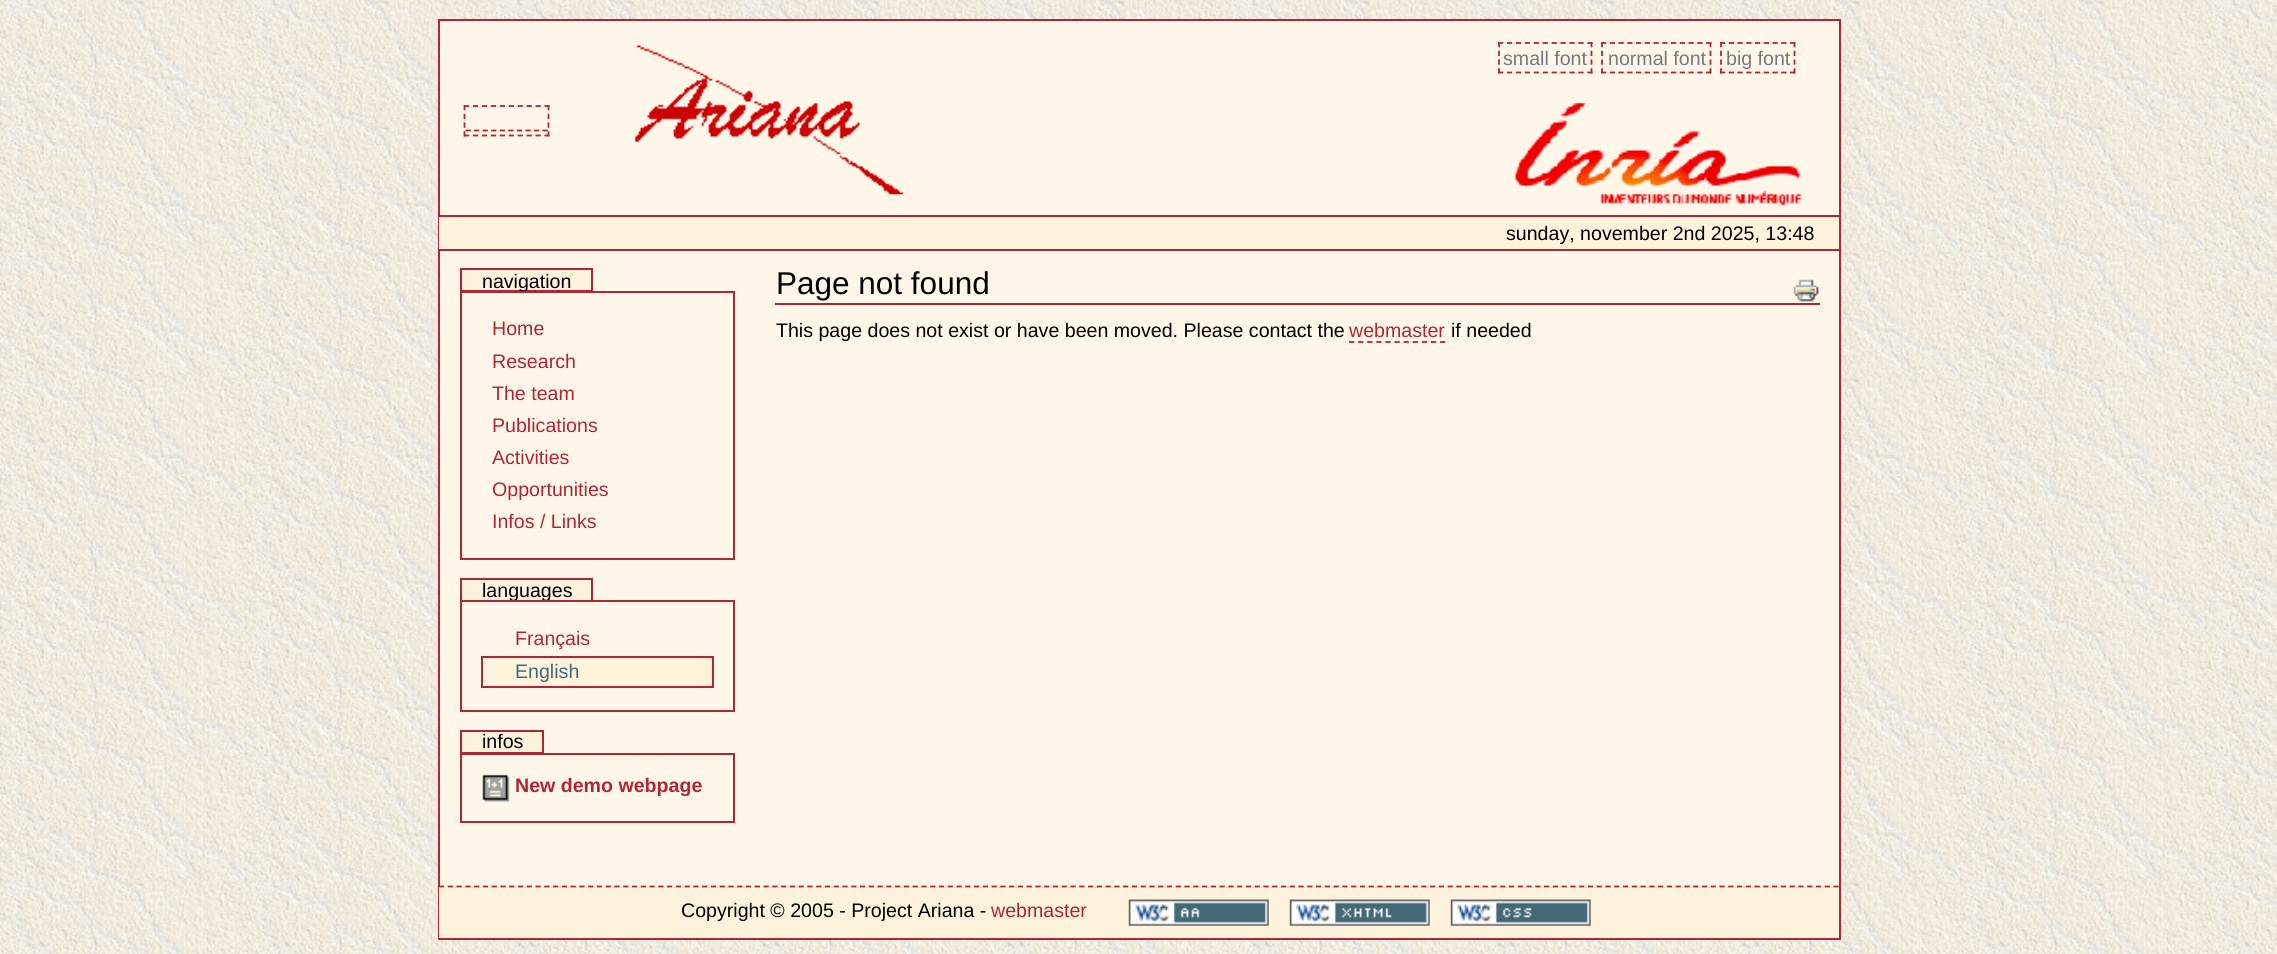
#include <cairo.h>
#include <math.h>
#include <stddef.h>

typedef struct { double x, y; const char *s; } line_t;
typedef struct { double x, y, w, h; unsigned color; } box_t;

static void ink(cairo_t *ctx, unsigned color) {
    cairo_set_source_rgb(ctx, (color >> 16) / 255.0, (color >> 8 & 255) / 255.0, (color & 255) / 255.0);
}

static void paste(cairo_t *ctx, const char *path, double x, double y, double w, double h) {
    cairo_surface_t *image = cairo_image_surface_create_from_png(path);
    cairo_save(ctx);
    cairo_set_source_surface(ctx, image, x, y);
    cairo_rectangle(ctx, x, y, w, h);
    cairo_fill(ctx);
    cairo_restore(ctx);
    cairo_surface_destroy(image);
}

int main(void) {
    cairo_surface_t *surface = cairo_image_surface_create(CAIRO_FORMAT_RGB24, 2277, 954);
    cairo_t *ctx = cairo_create(surface);
    cairo_font_options_t *options = cairo_font_options_create();
    cairo_font_options_set_hint_metrics(options, CAIRO_HINT_METRICS_OFF);
    cairo_font_options_set_hint_style(options, CAIRO_HINT_STYLE_NONE);
    cairo_set_font_options(ctx, options);
    cairo_set_miter_limit(ctx, 4);
    ink(ctx, 0xFFFFFF);
    cairo_paint(ctx);
    paste(ctx, "media/1.png", 0, 0, 2277, 954);
    ink(ctx, 0xFFF6EA);
    cairo_rectangle(ctx, 440, 21, 1399, 865);
    cairo_fill(ctx);
    cairo_rectangle(ctx, 439, 20, 1401, 919);
    ink(ctx, 0xAF2634);
    cairo_stroke(ctx);
    cairo_new_path(ctx);
    cairo_move_to(ctx, 464, 106);
    cairo_line_to(ctx, 549.5, 106);
    cairo_set_line_width(ctx, 1.8);
    cairo_set_dash(ctx, (double[]){5.25, 3.69}, 2, 0);
    cairo_stroke(ctx);
    cairo_new_path(ctx);
    cairo_move_to(ctx, 548.5, 105);
    cairo_line_to(ctx, 548.5, 136.5);
    cairo_set_dash(ctx, (double[]){5.25, 3.5}, 2, 0);
    cairo_stroke(ctx);
    cairo_new_path(ctx);
    cairo_move_to(ctx, 464, 135.5);
    cairo_line_to(ctx, 549.5, 135.5);
    cairo_set_dash(ctx, (double[]){5.25, 3.69}, 2, 0);
    cairo_stroke(ctx);
    cairo_new_path(ctx);
    cairo_move_to(ctx, 464.5, 105);
    cairo_line_to(ctx, 464.5, 136.5);
    cairo_set_dash(ctx, (double[]){5.25, 3.5}, 2, 0);
    cairo_stroke(ctx);
    cairo_new_path(ctx);
    cairo_move_to(ctx, 465.5, 130.5);
    cairo_line_to(ctx, 548, 130.5);
    cairo_set_dash(ctx, (double[]){5.25, 3.31}, 2, 0);
    cairo_stroke(ctx);
    paste(ctx, "media/2.png", 634, 45, 270, 150);
    cairo_select_font_face(ctx, "Liberation Sans", CAIRO_FONT_SLANT_NORMAL, CAIRO_FONT_WEIGHT_NORMAL);
    cairo_set_font_size(ctx, 19.6);
    ink(ctx, 0x76797C);
    cairo_move_to(ctx, 1503, 65);
    cairo_show_text(ctx, "small font");
    cairo_new_path(ctx);
    cairo_move_to(ctx, 1498, 43);
    cairo_line_to(ctx, 1592.5, 43);
    ink(ctx, 0xAF2634);
    cairo_set_dash(ctx, (double[]){5.25, 3.68}, 2, 0);
    cairo_stroke(ctx);
    cairo_new_path(ctx);
    cairo_move_to(ctx, 1591.5, 42);
    cairo_line_to(ctx, 1591.5, 73.5);
    cairo_set_dash(ctx, (double[]){5.25, 3.5}, 2, 0);
    cairo_stroke(ctx);
    cairo_new_path(ctx);
    cairo_move_to(ctx, 1498, 72.5);
    cairo_line_to(ctx, 1592.5, 72.5);
    cairo_set_dash(ctx, (double[]){5.25, 3.68}, 2, 0);
    cairo_stroke(ctx);
    cairo_new_path(ctx);
    cairo_move_to(ctx, 1499, 42);
    cairo_line_to(ctx, 1499, 73.5);
    cairo_set_dash(ctx, (double[]){5.25, 3.5}, 2, 0);
    cairo_stroke(ctx);
    ink(ctx, 0x76797C);
    cairo_move_to(ctx, 1608, 65);
    cairo_show_text(ctx, "normal font");
    cairo_new_path(ctx);
    cairo_move_to(ctx, 1601, 43);
    cairo_line_to(ctx, 1711.5, 43);
    ink(ctx, 0xAF2634);
    cairo_stroke(ctx);
    cairo_new_path(ctx);
    cairo_move_to(ctx, 1710.5, 42);
    cairo_line_to(ctx, 1710.5, 73.5);
    cairo_stroke(ctx);
    cairo_new_path(ctx);
    cairo_move_to(ctx, 1601, 72.5);
    cairo_line_to(ctx, 1711.5, 72.5);
    cairo_stroke(ctx);
    cairo_new_path(ctx);
    cairo_move_to(ctx, 1602, 42);
    cairo_line_to(ctx, 1602, 73.5);
    cairo_stroke(ctx);
    ink(ctx, 0x76797C);
    cairo_move_to(ctx, 1726, 65);
    cairo_show_text(ctx, "big font");
    cairo_new_path(ctx);
    cairo_move_to(ctx, 1720, 43);
    cairo_line_to(ctx, 1795.5, 43);
    ink(ctx, 0xAF2634);
    cairo_stroke(ctx);
    cairo_new_path(ctx);
    cairo_move_to(ctx, 1794.5, 42);
    cairo_line_to(ctx, 1794.5, 73.5);
    cairo_stroke(ctx);
    cairo_new_path(ctx);
    cairo_move_to(ctx, 1720, 72.5);
    cairo_line_to(ctx, 1795.5, 72.5);
    cairo_stroke(ctx);
    cairo_new_path(ctx);
    cairo_move_to(ctx, 1721, 42);
    cairo_line_to(ctx, 1721, 73.5);
    cairo_stroke(ctx);
    paste(ctx, "media/3.png", 1515, 103, 286, 104);
    {
        static const box_t items[] = {
            {439, 217, 1400, 32, 0xFDF3DD},
            {439, 215, 1400, 2, 0xAF2634},
            {439, 249, 1400, 2, 0xAF2634},
        };
        for (size_t i = 0; i < sizeof items / sizeof *items; i++) {
            ink(ctx, items[i].color);
            cairo_rectangle(ctx, items[i].x, items[i].y, items[i].w, items[i].h);
            cairo_fill(ctx);
        }
    }
    ink(ctx, 0x000000);
    cairo_move_to(ctx, 1506, 240);
    cairo_show_text(ctx, "sunday, november 2nd 2025, 13:48");
    ink(ctx, 0xFDF3DD);
    cairo_rectangle(ctx, 461, 269, 131, 22);
    cairo_fill_preserve(ctx);
    ink(ctx, 0xAF2634);
    cairo_set_line_width(ctx, 2);
    cairo_set_dash(ctx, NULL, 0, 0);
    cairo_stroke(ctx);
    ink(ctx, 0x000000);
    cairo_move_to(ctx, 482, 288);
    cairo_show_text(ctx, "navigation");
    cairo_rectangle(ctx, 461, 292, 273, 267);
    ink(ctx, 0xAF2634);
    cairo_stroke(ctx);
    {
        static const line_t items[] = {
            {492, 335, "Home"},
            {492, 368, "Research"},
            {492, 400, "The team"},
            {492, 432, "Publications"},
            {492, 464, "Activities"},
            {492, 496, "Opportunities"},
            {492, 528, "Infos / Links"},
        };
        for (size_t i = 0; i < sizeof items / sizeof *items; i++) {
            cairo_move_to(ctx, items[i].x, items[i].y);
            cairo_show_text(ctx, items[i].s);
        }
    }
    ink(ctx, 0xFDF3DD);
    cairo_rectangle(ctx, 461, 579, 131, 22);
    cairo_fill_preserve(ctx);
    ink(ctx, 0xAF2634);
    cairo_stroke(ctx);
    ink(ctx, 0x000000);
    cairo_move_to(ctx, 482, 597);
    cairo_show_text(ctx, "languages");
    cairo_rectangle(ctx, 461, 601, 273, 110);
    ink(ctx, 0xAF2634);
    cairo_stroke(ctx);
    cairo_move_to(ctx, 515, 645);
    cairo_show_text(ctx, "Français");
    ink(ctx, 0xFDF3DD);
    cairo_rectangle(ctx, 482, 657, 231, 30);
    cairo_fill_preserve(ctx);
    ink(ctx, 0xAF2634);
    cairo_stroke(ctx);
    ink(ctx, 0x436976);
    cairo_move_to(ctx, 515, 678);
    cairo_show_text(ctx, "English");
    ink(ctx, 0xFDF3DD);
    cairo_rectangle(ctx, 461, 731, 82, 22);
    cairo_fill_preserve(ctx);
    ink(ctx, 0xAF2634);
    cairo_stroke(ctx);
    ink(ctx, 0x000000);
    cairo_move_to(ctx, 482, 748);
    cairo_show_text(ctx, "infos");
    cairo_rectangle(ctx, 461, 754, 273, 68);
    ink(ctx, 0xAF2634);
    cairo_stroke(ctx);
    paste(ctx, "media/4.png", 482, 774, 28, 28);
    cairo_select_font_face(ctx, "Liberation Sans", CAIRO_FONT_SLANT_NORMAL, CAIRO_FONT_WEIGHT_BOLD);
    cairo_move_to(ctx, 515, 792);
    cairo_show_text(ctx, "New demo webpage");
    cairo_rectangle(ctx, 775, 303, 1045, 2);
    cairo_fill(ctx);
    cairo_select_font_face(ctx, "Liberation Sans", CAIRO_FONT_SLANT_NORMAL, CAIRO_FONT_WEIGHT_NORMAL);
    cairo_set_font_size(ctx, 31.5);
    ink(ctx, 0x000000);
    cairo_move_to(ctx, 776, 294);
    cairo_show_text(ctx, "Page not found");
    paste(ctx, "media/5.png", 1793, 279, 26, 23);
    cairo_set_font_size(ctx, 19.6);
    cairo_move_to(ctx, 776, 337);
    cairo_show_text(ctx, "This page does not exist or have been moved. Please contact the");
    ink(ctx, 0xAF2634);
    cairo_move_to(ctx, 1349, 337);
    cairo_show_text(ctx, "webmaster");
    cairo_new_path(ctx);
    cairo_move_to(ctx, 1349, 342);
    cairo_line_to(ctx, 1445.5, 342);
    cairo_set_line_width(ctx, 1.8);
    cairo_set_dash(ctx, (double[]){5.25, 3.85}, 2, 0);
    cairo_stroke(ctx);
    ink(ctx, 0x000000);
    cairo_move_to(ctx, 1451, 337);
    cairo_show_text(ctx, "if needed");
    ink(ctx, 0xFDF3DD);
    cairo_rectangle(ctx, 439, 886, 1400, 52);
    cairo_fill(ctx);
    cairo_new_path(ctx);
    cairo_move_to(ctx, 439, 886.5);
    cairo_line_to(ctx, 1839, 886.5);
    ink(ctx, 0xAF2634);
    cairo_set_dash(ctx, (double[]){5.25, 3.52}, 2, 0);
    cairo_stroke(ctx);
    ink(ctx, 0x000000);
    cairo_move_to(ctx, 681, 917);
    cairo_show_text(ctx, "Copyright © 2005 - Project Ariana -");
    ink(ctx, 0xAF2634);
    cairo_move_to(ctx, 991, 917);
    cairo_show_text(ctx, "webmaster");
    paste(ctx, "media/6.png", 1128, 899, 141, 27);
    paste(ctx, "media/7.png", 1289, 899, 141, 27);
    paste(ctx, "media/8.png", 1450, 899, 141, 27);
    cairo_surface_write_to_png(surface, "image.png");
    cairo_font_options_destroy(options);
    cairo_destroy(ctx);
    cairo_surface_destroy(surface);
    return 0;
}
